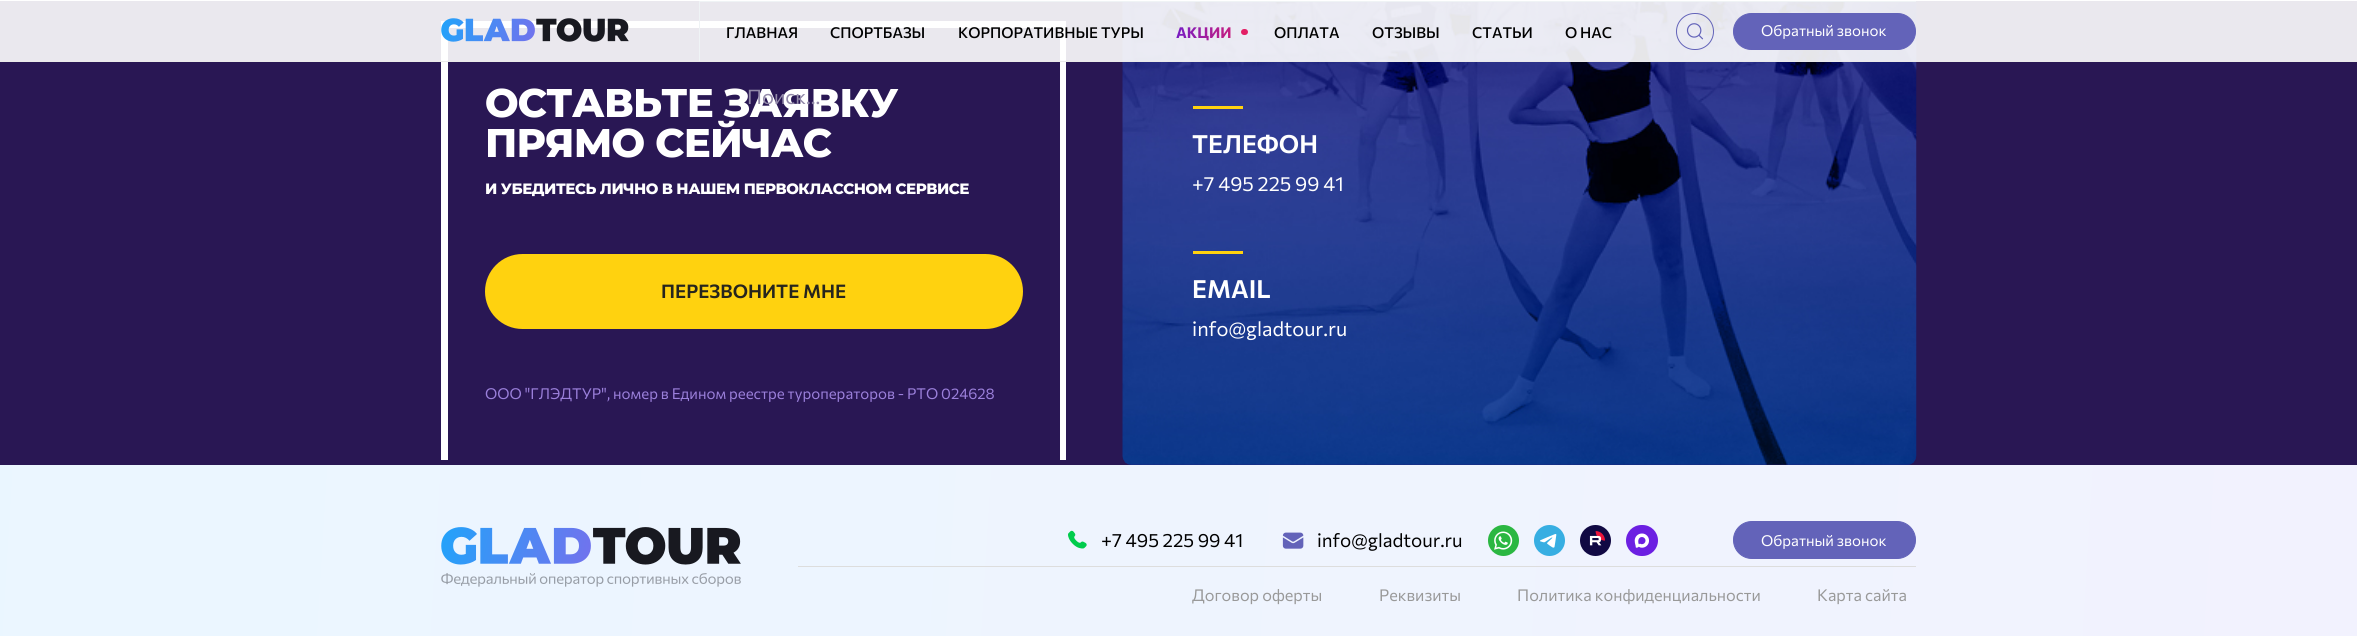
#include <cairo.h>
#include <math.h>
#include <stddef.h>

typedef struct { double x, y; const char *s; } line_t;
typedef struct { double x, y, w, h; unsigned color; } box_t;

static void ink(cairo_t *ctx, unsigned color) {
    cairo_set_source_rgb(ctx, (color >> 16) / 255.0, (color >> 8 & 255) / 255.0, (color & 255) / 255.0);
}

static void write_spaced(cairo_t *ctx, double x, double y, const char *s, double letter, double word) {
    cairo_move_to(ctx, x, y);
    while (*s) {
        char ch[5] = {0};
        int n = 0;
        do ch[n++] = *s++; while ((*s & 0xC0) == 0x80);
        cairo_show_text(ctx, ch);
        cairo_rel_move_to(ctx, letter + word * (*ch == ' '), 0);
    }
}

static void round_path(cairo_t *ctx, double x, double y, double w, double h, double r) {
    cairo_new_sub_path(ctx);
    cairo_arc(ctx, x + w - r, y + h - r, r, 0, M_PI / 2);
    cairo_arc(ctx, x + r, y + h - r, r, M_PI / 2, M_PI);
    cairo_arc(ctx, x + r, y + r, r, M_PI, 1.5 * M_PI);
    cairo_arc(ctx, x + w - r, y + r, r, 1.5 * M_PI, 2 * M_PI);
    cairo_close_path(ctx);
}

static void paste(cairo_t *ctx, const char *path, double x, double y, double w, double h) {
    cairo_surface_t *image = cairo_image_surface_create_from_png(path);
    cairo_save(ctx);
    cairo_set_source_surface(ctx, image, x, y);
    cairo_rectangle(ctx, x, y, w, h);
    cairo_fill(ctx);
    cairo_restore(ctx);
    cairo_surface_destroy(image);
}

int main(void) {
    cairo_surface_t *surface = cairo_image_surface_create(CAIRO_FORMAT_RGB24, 2357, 636);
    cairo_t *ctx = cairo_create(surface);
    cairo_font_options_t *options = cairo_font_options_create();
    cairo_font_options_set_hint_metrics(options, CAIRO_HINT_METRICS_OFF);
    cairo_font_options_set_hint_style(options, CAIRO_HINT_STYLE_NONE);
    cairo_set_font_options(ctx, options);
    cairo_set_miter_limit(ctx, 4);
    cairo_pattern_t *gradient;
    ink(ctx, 0xFFFFFF);
    cairo_paint(ctx);
    gradient = cairo_pattern_create_linear(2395, 57, -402, -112);
    cairo_pattern_add_color_stop_rgba(gradient, 0, 0.949, 0.949, 0.996, 1);
    cairo_pattern_add_color_stop_rgba(gradient, 1, 0.914, 0.969, 1, 1);
    cairo_set_source(ctx, gradient);
    cairo_pattern_destroy(gradient);
    cairo_rectangle(ctx, 0, 465, 2357, 171);
    cairo_fill(ctx);
    {
        static const box_t items[] = {
            {0, 1, 2357, 464, 0x291754},
            {441, 21, 625, 7, 0xFFFFFF},
            {1060, 21, 6, 439, 0xFFFFFF},
            {441, 21, 7, 439, 0xFFFFFF},
        };
        for (size_t i = 0; i < sizeof items / sizeof *items; i++) {
            ink(ctx, items[i].color);
            cairo_rectangle(ctx, items[i].x, items[i].y, items[i].w, items[i].h);
            cairo_fill(ctx);
        }
    }
    ink(ctx, 0x311779);
    round_path(ctx, 1123, -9, 793, 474, 9);
    cairo_fill(ctx);
    paste(ctx, "media/3.png", 1122, 1, 795, 464);
    cairo_set_source_rgba(ctx, 1, 1, 1, 0.9);
    cairo_rectangle(ctx, 0, 1, 2357, 60);
    cairo_fill(ctx);
    ink(ctx, 0xFFFFFF);
    cairo_rectangle(ctx, 1123, 0, 793, 1);
    cairo_fill(ctx);
    ink(ctx, 0xEAEAEA);
    cairo_rectangle(ctx, 0, 61, 2357, 1);
    cairo_fill(ctx);
    ink(ctx, 0xEFF3F5);
    cairo_rectangle(ctx, 699, 1, 1, 60);
    cairo_fill(ctx);
    paste(ctx, "media/1.png", 441, 18, 188, 24);
    cairo_rectangle(ctx, 700, 1, 1216, 1);
    cairo_fill(ctx);
    cairo_select_font_face(ctx, "Commissioner Medium", CAIRO_FONT_SLANT_NORMAL, CAIRO_FONT_WEIGHT_NORMAL);
    cairo_set_font_size(ctx, 15);
    ink(ctx, 0x000000);
    {
        static const line_t items[] = {
            {726, 38, "ГЛАВНАЯ"},
            {830, 38, "СПОРТБАЗЫ"},
            {958, 38, "КОРПОРАТИВНЫЕ ТУРЫ"},
        };
        for (size_t i = 0; i < sizeof items / sizeof *items; i++) {
            cairo_move_to(ctx, items[i].x, items[i].y);
            cairo_show_text(ctx, items[i].s);
        }
    }
    cairo_select_font_face(ctx, "Commissioner", CAIRO_FONT_SLANT_NORMAL, CAIRO_FONT_WEIGHT_BOLD);
    gradient = cairo_pattern_create_linear(1259, 35, 1144, 28);
    cairo_pattern_add_color_stop_rgba(gradient, 0, 0.922, 0.114, 0.365, 1);
    cairo_pattern_add_color_stop_rgba(gradient, 1, 0.29, 0.114, 0.922, 1);
    cairo_set_source(ctx, gradient);
    cairo_pattern_destroy(gradient);
    cairo_move_to(ctx, 1176, 38);
    cairo_show_text(ctx, "АКЦИИ");
    ink(ctx, 0xE31E65);
    round_path(ctx, 1241, 29, 7, 6, 3);
    cairo_fill(ctx);
    cairo_select_font_face(ctx, "Commissioner Medium", CAIRO_FONT_SLANT_NORMAL, CAIRO_FONT_WEIGHT_NORMAL);
    ink(ctx, 0x000000);
    {
        static const line_t items[] = {
            {1274, 38, "ОПЛАТА"},
            {1372, 38, "ОТЗЫВЫ"},
            {1472, 38, "СТАТЬИ"},
            {1565, 38, "О НАС"},
        };
        for (size_t i = 0; i < sizeof items / sizeof *items; i++) {
            cairo_move_to(ctx, items[i].x, items[i].y);
            cairo_show_text(ctx, items[i].s);
        }
    }
    round_path(ctx, 1676.5, 13.5, 37, 36, 18);
    ink(ctx, 0x6363B9);
    cairo_set_line_width(ctx, 1);
    cairo_stroke(ctx);
    paste(ctx, "media/2.png", 1686, 23, 18, 17);
    round_path(ctx, 1733.5, 13.5, 182, 36, 18);
    cairo_fill_preserve(ctx);
    cairo_stroke(ctx);
    cairo_select_font_face(ctx, "Commissioner", CAIRO_FONT_SLANT_NORMAL, CAIRO_FONT_WEIGHT_NORMAL);
    ink(ctx, 0xFFFFFF);
    cairo_move_to(ctx, 1761, 36);
    cairo_show_text(ctx, "Обратный звонок");
    cairo_select_font_face(ctx, "Montserrat ExtraBold", CAIRO_FONT_SLANT_NORMAL, CAIRO_FONT_WEIGHT_NORMAL);
    cairo_set_font_size(ctx, 40);
    write_spaced(ctx, 485, 117, "ОСТАВЬТЕ ЗАЯВКУ", -0.75, 0);
    cairo_select_font_face(ctx, "Commissioner", CAIRO_FONT_SLANT_NORMAL, CAIRO_FONT_WEIGHT_NORMAL);
    cairo_set_font_size(ctx, 20);
    ink(ctx, 0x938AA9);
    cairo_move_to(ctx, 747, 104);
    cairo_show_text(ctx, "Поиск...");
    cairo_select_font_face(ctx, "Montserrat ExtraBold", CAIRO_FONT_SLANT_NORMAL, CAIRO_FONT_WEIGHT_NORMAL);
    cairo_set_font_size(ctx, 40);
    ink(ctx, 0xFFFFFF);
    write_spaced(ctx, 485, 157, "ПРЯМО СЕЙЧАС", -0.75, 0);
    cairo_set_font_size(ctx, 15);
    write_spaced(ctx, 485, 194, "И УБЕДИТЕСЬ ЛИЧНО В НАШЕМ ПЕРВОКЛАССНОМ СЕРВИСЕ", -0.45, 0);
    ink(ctx, 0xFFD20F);
    round_path(ctx, 485, 254, 538, 75, 37.5);
    cairo_fill(ctx);
    cairo_select_font_face(ctx, "Commissioner SemiBold", CAIRO_FONT_SLANT_NORMAL, CAIRO_FONT_WEIGHT_NORMAL);
    cairo_set_font_size(ctx, 18.75);
    ink(ctx, 0x26251D);
    cairo_move_to(ctx, 661, 298);
    cairo_show_text(ctx, "ПЕРЕЗВОНИТЕ МНЕ");
    cairo_select_font_face(ctx, "Commissioner", CAIRO_FONT_SLANT_NORMAL, CAIRO_FONT_WEIGHT_NORMAL);
    cairo_set_font_size(ctx, 15);
    ink(ctx, 0x9B80DB);
    cairo_move_to(ctx, 485, 399);
    cairo_show_text(ctx, "ООО \"ГЛЭДТУР\", номер в Едином реестре туроператоров - РТО 024628");
    ink(ctx, 0xFFD20F);
    cairo_rectangle(ctx, 1193, 106, 50, 3);
    cairo_fill(ctx);
    cairo_select_font_face(ctx, "Commissioner SemiBold", CAIRO_FONT_SLANT_NORMAL, CAIRO_FONT_WEIGHT_NORMAL);
    cairo_set_font_size(ctx, 25);
    ink(ctx, 0xFFFFFF);
    cairo_move_to(ctx, 1192, 153);
    cairo_show_text(ctx, "ТЕЛЕФОН");
    cairo_select_font_face(ctx, "Commissioner", CAIRO_FONT_SLANT_NORMAL, CAIRO_FONT_WEIGHT_NORMAL);
    cairo_set_font_size(ctx, 20);
    cairo_move_to(ctx, 1192, 191);
    cairo_show_text(ctx, "+7 495 225 99 41");
    ink(ctx, 0xFFD20F);
    cairo_rectangle(ctx, 1193, 251, 50, 3);
    cairo_fill(ctx);
    cairo_select_font_face(ctx, "Commissioner SemiBold", CAIRO_FONT_SLANT_NORMAL, CAIRO_FONT_WEIGHT_NORMAL);
    cairo_set_font_size(ctx, 25);
    ink(ctx, 0xFFFFFF);
    cairo_move_to(ctx, 1192, 298);
    cairo_show_text(ctx, "EMAIL");
    cairo_select_font_face(ctx, "Commissioner", CAIRO_FONT_SLANT_NORMAL, CAIRO_FONT_WEIGHT_NORMAL);
    cairo_set_font_size(ctx, 20);
    cairo_move_to(ctx, 1192, 336);
    cairo_show_text(ctx, "info@gladtour.ru");
    paste(ctx, "media/4.png", 441, 527, 300, 60);
    ink(ctx, 0xDDDDDD);
    cairo_rectangle(ctx, 798, 566, 1118, 1);
    cairo_fill(ctx);
    paste(ctx, "media/5.png", 1068, 530, 19, 19);
    cairo_set_font_size(ctx, 18.75);
    ink(ctx, 0x000000);
    cairo_move_to(ctx, 1101, 547);
    cairo_show_text(ctx, "+7 495 225 99 41");
    paste(ctx, "media/6.png", 1282, 532, 22, 17);
    cairo_move_to(ctx, 1317, 547);
    cairo_show_text(ctx, "info@gladtour.ru");
    ink(ctx, 0x2BB742);
    cairo_new_path(ctx);
    cairo_arc(ctx, 1503.5, 540.5, 15.5, 0, 2 * M_PI);
    cairo_fill(ctx);
    paste(ctx, "media/7.png", 1494, 531, 19, 19);
    ink(ctx, 0x37AEE2);
    cairo_arc(ctx, 1549.5, 540.5, 15.5, 0, 2 * M_PI);
    cairo_fill(ctx);
    paste(ctx, "media/8.png", 1540, 534, 17, 14);
    ink(ctx, 0x110943);
    cairo_arc(ctx, 1595.5, 540.5, 15.5, 0, 2 * M_PI);
    cairo_fill(ctx);
    paste(ctx, "media/9.png", 1589, 531, 16, 15);
    ink(ctx, 0x6C1FE2);
    round_path(ctx, 1626, 525, 32, 31, 15.5);
    cairo_fill(ctx);
    paste(ctx, "media/10.png", 1634, 533, 15, 15);
    ink(ctx, 0x6363B9);
    round_path(ctx, 1733.5, 521.5, 182, 37, 18.5);
    cairo_fill_preserve(ctx);
    cairo_stroke(ctx);
    cairo_set_font_size(ctx, 15);
    ink(ctx, 0xFFFFFF);
    cairo_move_to(ctx, 1761, 546);
    cairo_show_text(ctx, "Обратный звонок");
    cairo_set_font_size(ctx, 16.25);
    ink(ctx, 0x999999);
    {
        static const line_t items[] = {
            {1192, 601, "Договор оферты"},
            {1379, 601, "Реквизиты"},
            {1517, 601, "Политика конфиденциальности"},
            {1817, 601, "Карта сайта"},
        };
        for (size_t i = 0; i < sizeof items / sizeof *items; i++) {
            cairo_move_to(ctx, items[i].x, items[i].y);
            cairo_show_text(ctx, items[i].s);
        }
    }
    cairo_surface_write_to_png(surface, "image.png");
    cairo_font_options_destroy(options);
    cairo_destroy(ctx);
    cairo_surface_destroy(surface);
    return 0;
}
